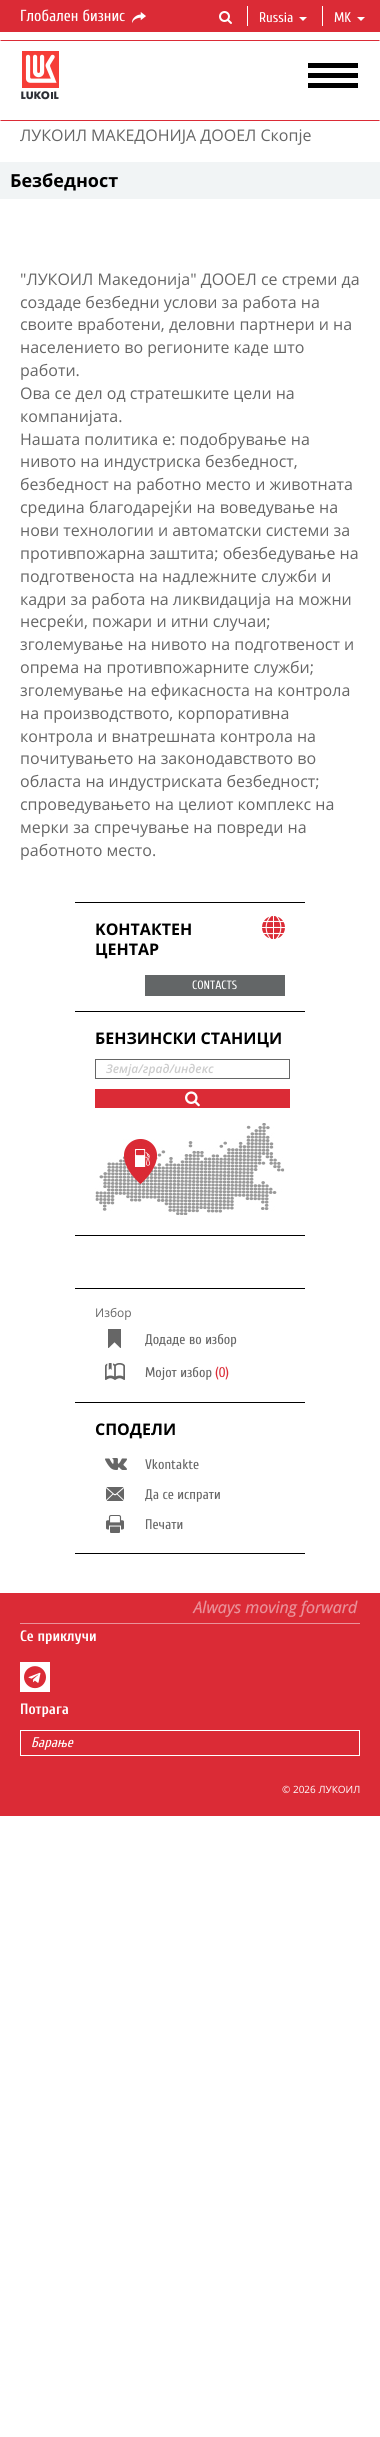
#include <cairo.h>
#include <math.h>
#include <stddef.h>

typedef struct { double x, y; const char *s; } line_t;
typedef struct { double x, y, w, h; unsigned color; } box_t;

static void ink(cairo_t *ctx, unsigned color) {
    cairo_set_source_rgb(ctx, (color >> 16) / 255.0, (color >> 8 & 255) / 255.0, (color & 255) / 255.0);
}

static void paste(cairo_t *ctx, const char *path, double x, double y, double w, double h) {
    cairo_surface_t *image = cairo_image_surface_create_from_png(path);
    cairo_save(ctx);
    cairo_set_source_surface(ctx, image, x, y);
    cairo_rectangle(ctx, x, y, w, h);
    cairo_fill(ctx);
    cairo_restore(ctx);
    cairo_surface_destroy(image);
}

int main(void) {
    cairo_surface_t *surface = cairo_image_surface_create(CAIRO_FORMAT_RGB24, 380, 2437);
    cairo_t *ctx = cairo_create(surface);
    cairo_font_options_t *options = cairo_font_options_create();
    cairo_font_options_set_hint_metrics(options, CAIRO_HINT_METRICS_OFF);
    cairo_font_options_set_hint_style(options, CAIRO_HINT_STYLE_NONE);
    cairo_set_font_options(ctx, options);
    cairo_set_miter_limit(ctx, 4);
    ink(ctx, 0xFFFFFF);
    cairo_paint(ctx);
    ink(ctx, 0xDB2B36);
    cairo_rectangle(ctx, 0, 0, 380, 32);
    cairo_fill(ctx);
    cairo_select_font_face(ctx, "Cuprum", CAIRO_FONT_SLANT_NORMAL, CAIRO_FONT_WEIGHT_NORMAL);
    cairo_set_font_size(ctx, 16);
    ink(ctx, 0xFFFFFF);
    cairo_move_to(ctx, 20, 21);
    cairo_show_text(ctx, "Глобален бизнис");
    paste(ctx, "media/1.png", 132, 12, 14, 11);
    paste(ctx, "media/2.png", 219, 11, 13, 13);
    cairo_rectangle(ctx, 247, 6, 1, 20);
    cairo_fill(ctx);
    cairo_set_font_size(ctx, 14);
    cairo_move_to(ctx, 259, 22);
    cairo_show_text(ctx, "Russia");
    cairo_new_path(ctx);
    cairo_move_to(ctx, 299, 17);
    cairo_line_to(ctx, 307, 17);
    cairo_line_to(ctx, 303, 21);
    cairo_close_path(ctx);
    cairo_fill(ctx);
    cairo_rectangle(ctx, 322, 6, 1, 20);
    cairo_fill(ctx);
    cairo_move_to(ctx, 334, 22);
    cairo_show_text(ctx, "MK");
    cairo_new_path(ctx);
    cairo_move_to(ctx, 357, 17);
    cairo_line_to(ctx, 365, 17);
    cairo_line_to(ctx, 361, 21);
    cairo_close_path(ctx);
    cairo_fill(ctx);
    ink(ctx, 0xDB2B36);
    cairo_new_path(ctx);
    cairo_move_to(ctx, 0, 40);
    cairo_line_to(ctx, 380, 40);
    cairo_line_to(ctx, 379, 41);
    cairo_line_to(ctx, 1, 41);
    cairo_close_path(ctx);
    cairo_fill(ctx);
    cairo_new_path(ctx);
    cairo_move_to(ctx, 380, 121);
    cairo_line_to(ctx, 0, 121);
    cairo_line_to(ctx, 1, 120);
    cairo_line_to(ctx, 379, 120);
    cairo_close_path(ctx);
    cairo_fill(ctx);
    paste(ctx, "media/3.png", 21, 51, 38, 49);
    {
        static const box_t items[] = {
            {308, 63, 50, 5, 0x000000},
            {308, 73, 50, 5, 0x000000},
            {308, 83, 50, 5, 0x000000},
        };
        for (size_t i = 0; i < sizeof items / sizeof *items; i++) {
            ink(ctx, items[i].color);
            cairo_rectangle(ctx, items[i].x, items[i].y, items[i].w, items[i].h);
            cairo_fill(ctx);
        }
    }
    cairo_select_font_face(ctx, "Open Sans", CAIRO_FONT_SLANT_NORMAL, CAIRO_FONT_WEIGHT_NORMAL);
    cairo_set_font_size(ctx, 16);
    ink(ctx, 0x666666);
    cairo_move_to(ctx, 20, 141);
    cairo_show_text(ctx, "ЛУКОИЛ МАКЕДОНИJА ДООЕЛ Скопje");
    ink(ctx, 0xF1F4F5);
    cairo_rectangle(ctx, 0, 162, 380, 37);
    cairo_fill(ctx);
    cairo_select_font_face(ctx, "Open Sans", CAIRO_FONT_SLANT_NORMAL, CAIRO_FONT_WEIGHT_BOLD);
    cairo_set_font_size(ctx, 18);
    ink(ctx, 0x000000);
    cairo_move_to(ctx, 10, 187);
    cairo_show_text(ctx, "Безбедност");
    cairo_select_font_face(ctx, "Open Sans", CAIRO_FONT_SLANT_NORMAL, CAIRO_FONT_WEIGHT_NORMAL);
    cairo_set_font_size(ctx, 16);
    ink(ctx, 0x666666);
    {
        static const line_t items[] = {
            {20, 285, "\"ЛУКОИЛ Македонија\" ДООЕЛ се стреми да"},
            {20, 308, "создаде безбедни услови за работа на"},
            {20, 330, "своите вработени, деловни партнери и на"},
            {20, 353, "населението во регионите каде што"},
            {20, 376, "работи."},
            {20, 399, "Ова се дел од стратешките цели на"},
            {20, 422, "компанијата."},
            {20, 445, "Нашата политика е: подобрување на"},
            {20, 467, "нивото на индустриска безбедност,"},
            {20, 490, "безбедност на работно место и животната"},
            {20, 513, "средина благодарејќи на воведување на"},
            {20, 536, "нови технологии и автоматски системи за"},
            {20, 559, "противпожарна заштита; обезбедување на"},
            {20, 582, "подготвеноста на надлежните служби и"},
            {20, 605, "кадри за работа на ликвидација на можни"},
            {20, 627, "несреќи, пожари и итни случаи;"},
            {20, 650, "зголемување на нивото на подготвеност и"},
            {20, 673, "опрема на противпожарните служби;"},
            {20, 696, "зголемување на ефикасноста на контрола"},
            {20, 719, "на производството, корпоративна"},
            {20, 742, "контрола и внатрешната контрола на"},
            {20, 764, "почитувањето на законодавството во"},
            {20, 787, "областа на индустриската безбедност;"},
            {20, 810, "спроведувањето на целиот комплекс на"},
            {20, 833, "мерки за спречување на повреди на"},
            {20, 856, "работното место."},
        };
        for (size_t i = 0; i < sizeof items / sizeof *items; i++) {
            cairo_move_to(ctx, items[i].x, items[i].y);
            cairo_show_text(ctx, items[i].s);
        }
    }
    ink(ctx, 0x000000);
    cairo_rectangle(ctx, 75, 902, 230, 1);
    cairo_fill(ctx);
    cairo_rectangle(ctx, 75, 1011, 230, 1);
    cairo_fill(ctx);
    cairo_select_font_face(ctx, "Open Sans", CAIRO_FONT_SLANT_NORMAL, CAIRO_FONT_WEIGHT_BOLD);
    cairo_move_to(ctx, 95, 935);
    cairo_show_text(ctx, "KОНТАКТЕН");
    paste(ctx, "media/4.png", 262, 916, 23, 23);
    cairo_move_to(ctx, 95, 955);
    cairo_show_text(ctx, "ЦЕНТАР");
    ink(ctx, 0x636667);
    cairo_rectangle(ctx, 145, 975, 140, 21);
    cairo_fill(ctx);
    cairo_select_font_face(ctx, "Cuprum", CAIRO_FONT_SLANT_NORMAL, CAIRO_FONT_WEIGHT_NORMAL);
    cairo_set_font_size(ctx, 12);
    ink(ctx, 0xFFFFFF);
    cairo_move_to(ctx, 192, 989);
    cairo_show_text(ctx, "CONTACTS");
    ink(ctx, 0x000000);
    cairo_rectangle(ctx, 75, 1235, 230, 1);
    cairo_fill(ctx);
    cairo_select_font_face(ctx, "Open Sans", CAIRO_FONT_SLANT_NORMAL, CAIRO_FONT_WEIGHT_BOLD);
    cairo_set_font_size(ctx, 16);
    cairo_move_to(ctx, 95, 1044);
    cairo_show_text(ctx, "БЕНЗИНСКИ СТАНИЦИ");
    cairo_rectangle(ctx, 95.5, 1059.5, 194, 19);
    ink(ctx, 0x666666);
    cairo_set_line_width(ctx, 1);
    cairo_stroke(ctx);
    cairo_select_font_face(ctx, "Open Sans SemiBold", CAIRO_FONT_SLANT_ITALIC, CAIRO_FONT_WEIGHT_NORMAL);
    cairo_set_font_size(ctx, 12);
    ink(ctx, 0xCCCCCC);
    cairo_move_to(ctx, 106, 1073);
    cairo_show_text(ctx, "Земjа/град/индекс");
    ink(ctx, 0xDB2B36);
    cairo_rectangle(ctx, 95, 1089, 195, 19);
    cairo_fill(ctx);
    paste(ctx, "media/5.png", 185, 1091, 15, 16);
    paste(ctx, "media/6.png", 95, 1123, 190, 92);
    ink(ctx, 0x000000);
    cairo_rectangle(ctx, 75, 1288, 230, 1);
    cairo_fill(ctx);
    cairo_rectangle(ctx, 75, 1402, 230, 1);
    cairo_fill(ctx);
    cairo_select_font_face(ctx, "Open Sans", CAIRO_FONT_SLANT_NORMAL, CAIRO_FONT_WEIGHT_NORMAL);
    ink(ctx, 0x666666);
    cairo_move_to(ctx, 95, 1317);
    cairo_show_text(ctx, "Избор");
    paste(ctx, "media/7.png", 108, 1329, 13, 19);
    cairo_select_font_face(ctx, "Cuprum", CAIRO_FONT_SLANT_NORMAL, CAIRO_FONT_WEIGHT_NORMAL);
    cairo_set_font_size(ctx, 14);
    cairo_move_to(ctx, 145, 1344);
    cairo_show_text(ctx, "Додаде во избор");
    paste(ctx, "media/8.png", 105, 1363, 20, 17);
    cairo_move_to(ctx, 145, 1377);
    cairo_show_text(ctx, "Моjот избор");
    ink(ctx, 0xDB2B36);
    cairo_move_to(ctx, 215, 1377);
    cairo_show_text(ctx, "(0)");
    ink(ctx, 0x000000);
    cairo_rectangle(ctx, 75, 1553, 230, 1);
    cairo_fill(ctx);
    cairo_select_font_face(ctx, "Open Sans", CAIRO_FONT_SLANT_NORMAL, CAIRO_FONT_WEIGHT_BOLD);
    cairo_set_font_size(ctx, 16);
    cairo_move_to(ctx, 95, 1435);
    cairo_show_text(ctx, "СПОДЕЛИ");
    paste(ctx, "media/9.png", 105, 1458, 22, 12);
    cairo_select_font_face(ctx, "Cuprum", CAIRO_FONT_SLANT_NORMAL, CAIRO_FONT_WEIGHT_NORMAL);
    cairo_set_font_size(ctx, 14);
    ink(ctx, 0x666666);
    cairo_move_to(ctx, 145, 1469);
    cairo_show_text(ctx, "Vkontakte");
    paste(ctx, "media/10.png", 106, 1487, 18, 14);
    cairo_move_to(ctx, 145, 1499);
    cairo_show_text(ctx, "Да се испрати");
    paste(ctx, "media/11.png", 106, 1515, 18, 18);
    cairo_move_to(ctx, 145, 1529);
    cairo_show_text(ctx, "Печати");
    ink(ctx, 0xDB2B36);
    cairo_rectangle(ctx, 0, 1593, 380, 223);
    cairo_fill(ctx);
    paste(ctx, "media/12.png", 192, 1600, 166, 17);
    ink(ctx, 0xEA929A);
    cairo_rectangle(ctx, 20, 1623, 340, 1);
    cairo_fill(ctx);
    cairo_select_font_face(ctx, "Cuprum", CAIRO_FONT_SLANT_NORMAL, CAIRO_FONT_WEIGHT_BOLD);
    cairo_set_font_size(ctx, 15);
    ink(ctx, 0xFFFFFF);
    cairo_move_to(ctx, 20, 1641);
    cairo_show_text(ctx, "Се приклучи");
    cairo_rectangle(ctx, 20, 1662, 30, 30);
    cairo_fill(ctx);
    paste(ctx, "media/13.png", 24, 1666, 22, 23);
    cairo_move_to(ctx, 20, 1714);
    cairo_show_text(ctx, "Потрага");
    cairo_rectangle(ctx, 20.5, 1730.5, 339, 25);
    cairo_stroke(ctx);
    cairo_select_font_face(ctx, "Cuprum", CAIRO_FONT_SLANT_ITALIC, CAIRO_FONT_WEIGHT_NORMAL);
    cairo_set_font_size(ctx, 14);
    cairo_move_to(ctx, 31, 1747);
    cairo_show_text(ctx, "Барање");
    cairo_select_font_face(ctx, "Open Sans", CAIRO_FONT_SLANT_NORMAL, CAIRO_FONT_WEIGHT_NORMAL);
    cairo_set_font_size(ctx, 10);
    cairo_move_to(ctx, 282, 1793);
    cairo_show_text(ctx, "© 2026 ЛУКОИЛ");
    cairo_surface_write_to_png(surface, "image.png");
    cairo_font_options_destroy(options);
    cairo_destroy(ctx);
    cairo_surface_destroy(surface);
    return 0;
}
